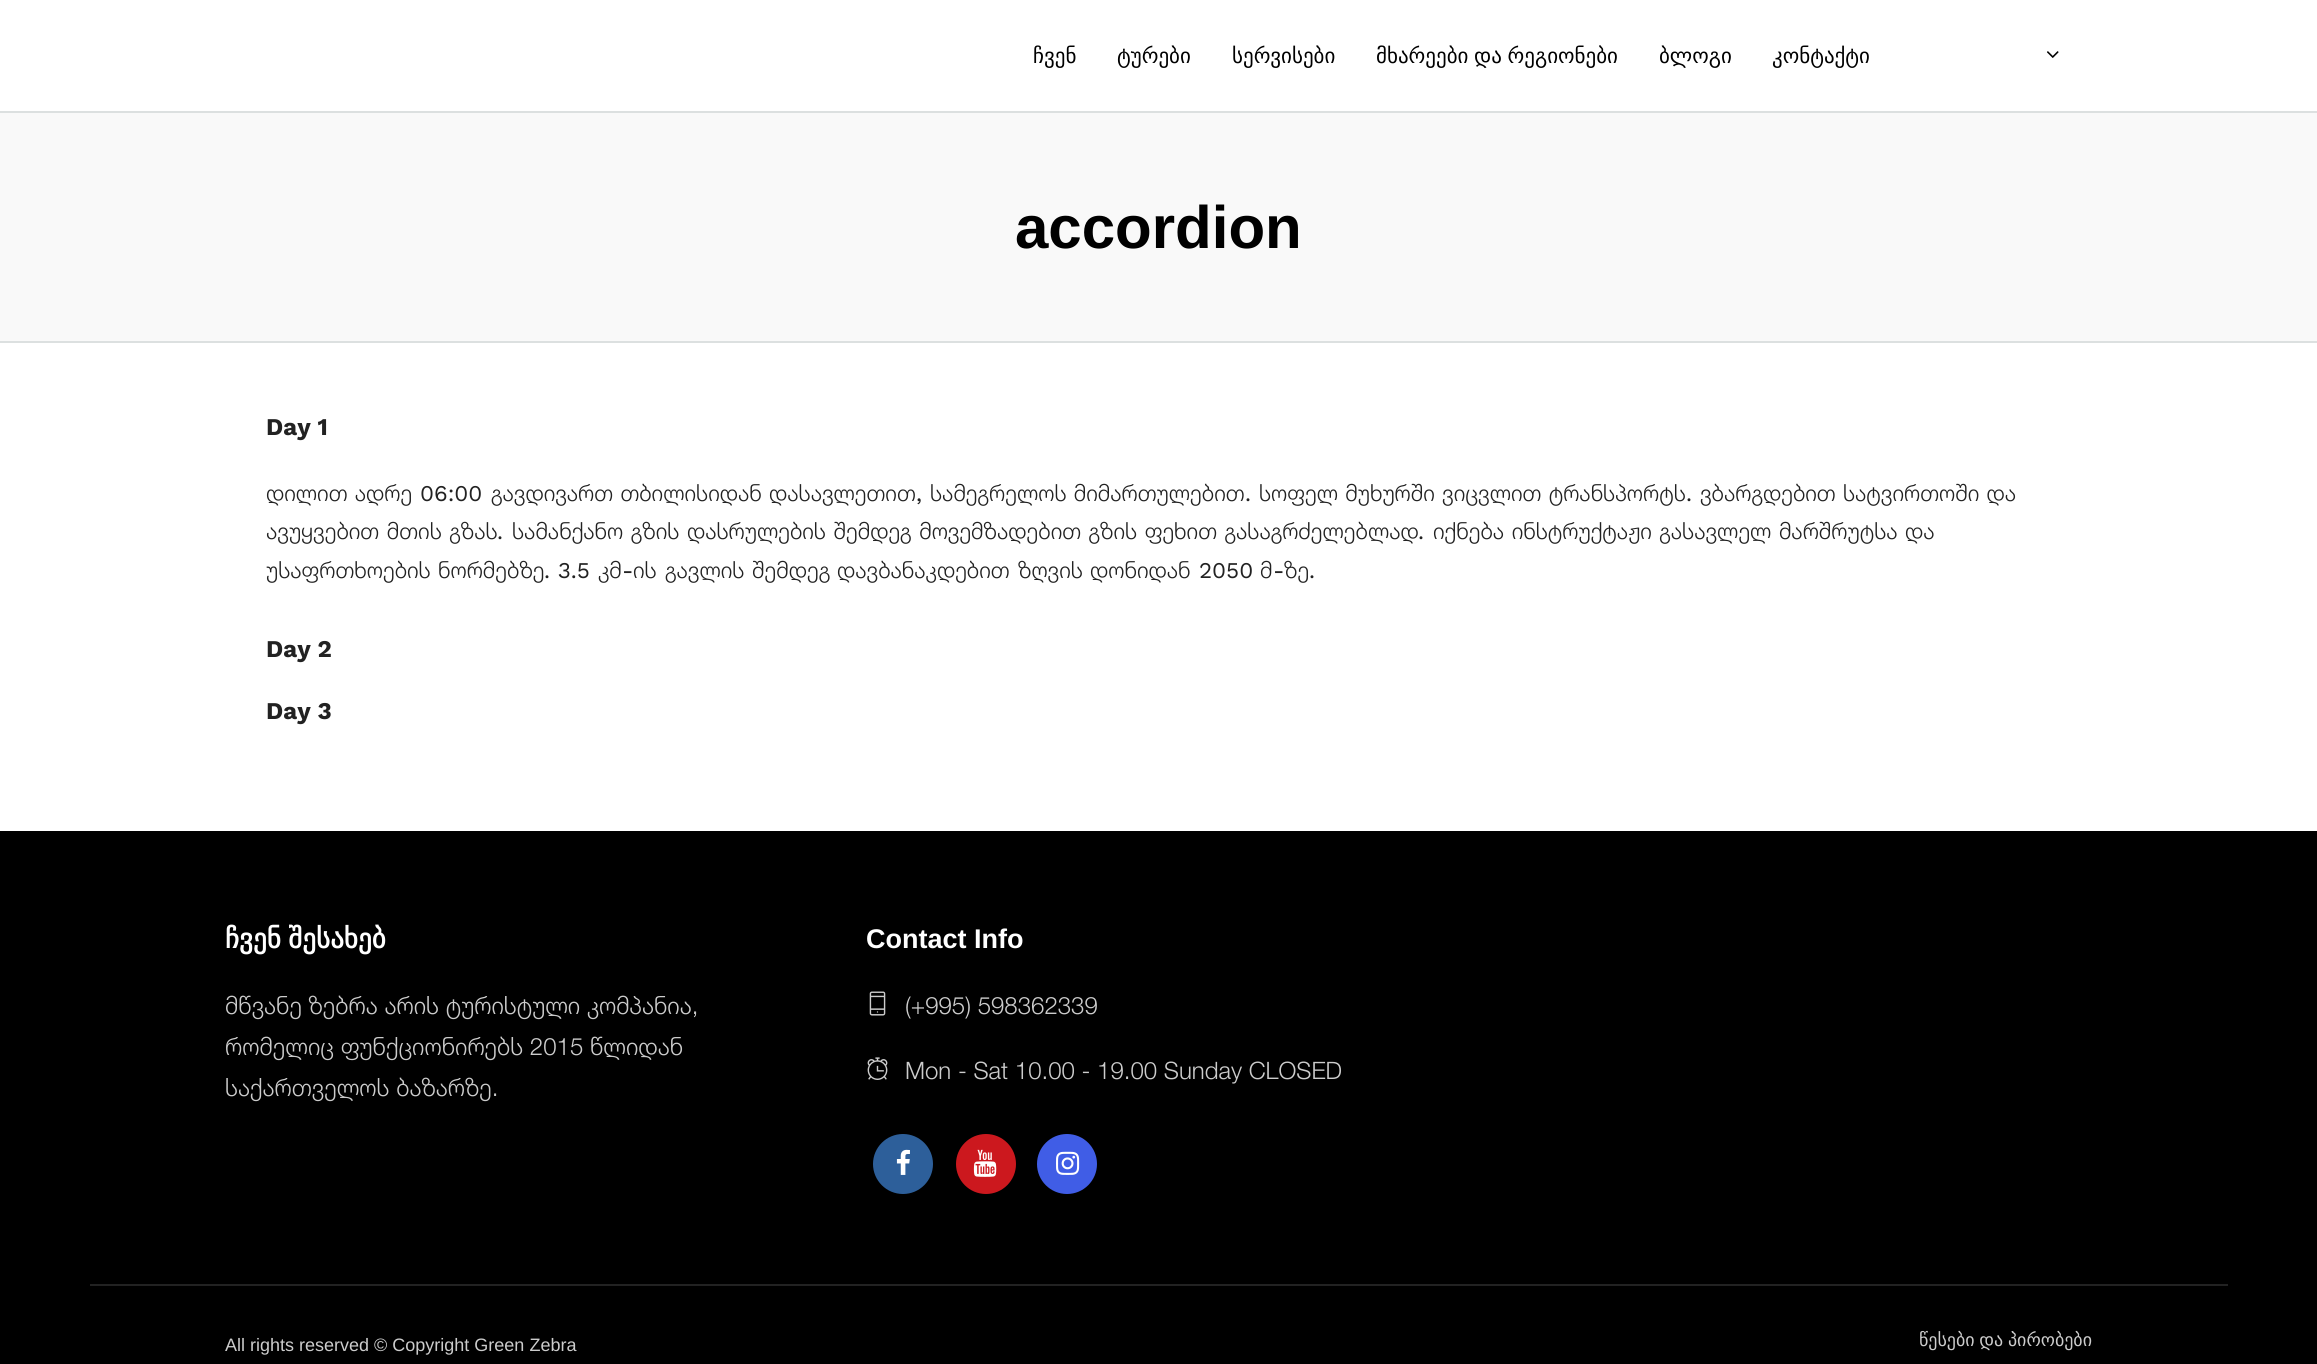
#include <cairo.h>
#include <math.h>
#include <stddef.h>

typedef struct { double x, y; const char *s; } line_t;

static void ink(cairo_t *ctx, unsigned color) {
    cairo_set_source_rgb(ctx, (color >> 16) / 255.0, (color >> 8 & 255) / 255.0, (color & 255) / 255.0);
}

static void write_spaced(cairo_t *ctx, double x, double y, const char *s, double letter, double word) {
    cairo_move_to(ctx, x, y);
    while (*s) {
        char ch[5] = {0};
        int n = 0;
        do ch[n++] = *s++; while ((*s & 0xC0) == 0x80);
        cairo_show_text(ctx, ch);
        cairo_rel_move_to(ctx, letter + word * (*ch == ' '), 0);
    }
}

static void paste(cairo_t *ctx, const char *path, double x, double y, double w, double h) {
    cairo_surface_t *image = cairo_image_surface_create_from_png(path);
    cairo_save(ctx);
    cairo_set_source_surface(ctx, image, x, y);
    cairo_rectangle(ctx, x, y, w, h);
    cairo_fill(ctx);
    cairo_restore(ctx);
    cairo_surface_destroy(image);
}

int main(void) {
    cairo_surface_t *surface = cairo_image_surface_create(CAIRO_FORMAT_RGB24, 2317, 1364);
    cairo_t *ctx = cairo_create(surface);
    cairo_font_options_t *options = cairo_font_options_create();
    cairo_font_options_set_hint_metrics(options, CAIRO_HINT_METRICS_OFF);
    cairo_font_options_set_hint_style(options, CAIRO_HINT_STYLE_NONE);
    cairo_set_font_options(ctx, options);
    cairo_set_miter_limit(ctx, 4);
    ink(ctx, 0xFFFFFF);
    cairo_paint(ctx);
    ink(ctx, 0xDCE0E0);
    cairo_rectangle(ctx, 0, 111, 2317, 2);
    cairo_fill(ctx);
    cairo_select_font_face(ctx, "DejaVu Sans", CAIRO_FONT_SLANT_NORMAL, CAIRO_FONT_WEIGHT_NORMAL);
    cairo_set_font_size(ctx, 21);
    ink(ctx, 0x000000);
    {
        static const line_t items[] = {
            {1033, 63, "ჩვენ"},
            {1117, 63, "ტურები"},
            {1232, 63, "სერვისები"},
        };
        for (size_t i = 0; i < sizeof items / sizeof *items; i++) {
            cairo_move_to(ctx, items[i].x, items[i].y);
            cairo_show_text(ctx, items[i].s);
        }
    }
    write_spaced(ctx, 1376, 63, "მხარეები და რეგიონები", 0, -1);
    cairo_move_to(ctx, 1659, 63);
    cairo_show_text(ctx, "ბლოგი");
    cairo_move_to(ctx, 1772, 63);
    cairo_show_text(ctx, "კონტაქტი");
    paste(ctx, "media/1.png", 2047, 51, 12, 7);
    ink(ctx, 0xF9F9F9);
    cairo_rectangle(ctx, 0, 113, 2317, 228);
    cairo_fill(ctx);
    ink(ctx, 0xDCE0E0);
    cairo_rectangle(ctx, 0, 341, 2317, 2);
    cairo_fill(ctx);
    cairo_select_font_face(ctx, "Liberation Sans", CAIRO_FONT_SLANT_NORMAL, CAIRO_FONT_WEIGHT_BOLD);
    cairo_set_font_size(ctx, 60);
    ink(ctx, 0x000000);
    cairo_move_to(ctx, 1015, 248);
    cairo_show_text(ctx, "accordion");
    cairo_select_font_face(ctx, "Work Sans", CAIRO_FONT_SLANT_NORMAL, CAIRO_FONT_WEIGHT_BOLD);
    cairo_set_font_size(ctx, 24);
    ink(ctx, 0x222222);
    cairo_move_to(ctx, 266, 435);
    cairo_show_text(ctx, "Day 1");
    cairo_select_font_face(ctx, "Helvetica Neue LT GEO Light", CAIRO_FONT_SLANT_NORMAL, CAIRO_FONT_WEIGHT_NORMAL);
    cairo_set_font_size(ctx, 22.5);
    write_spaced(ctx, 266, 501, "დილით ადრე", 0, 1);
    cairo_select_font_face(ctx, "Work Sans", CAIRO_FONT_SLANT_NORMAL, CAIRO_FONT_WEIGHT_NORMAL);
    cairo_move_to(ctx, 420, 501);
    cairo_show_text(ctx, "06:00");
    cairo_select_font_face(ctx, "Helvetica Neue LT GEO Light", CAIRO_FONT_SLANT_NORMAL, CAIRO_FONT_WEIGHT_NORMAL);
    write_spaced(ctx, 491, 501, "გავდივართ თბილისიდან დასავლეთით", 0, 1);
    cairo_select_font_face(ctx, "Work Sans", CAIRO_FONT_SLANT_NORMAL, CAIRO_FONT_WEIGHT_NORMAL);
    cairo_move_to(ctx, 916, 501);
    cairo_show_text(ctx, ",");
    cairo_select_font_face(ctx, "Helvetica Neue LT GEO Light", CAIRO_FONT_SLANT_NORMAL, CAIRO_FONT_WEIGHT_NORMAL);
    write_spaced(ctx, 930, 501, "სამეგრელოს მიმართულებით", 0, 1);
    cairo_select_font_face(ctx, "Work Sans", CAIRO_FONT_SLANT_NORMAL, CAIRO_FONT_WEIGHT_NORMAL);
    cairo_move_to(ctx, 1245, 501);
    cairo_show_text(ctx, ".");
    cairo_select_font_face(ctx, "Helvetica Neue LT GEO Light", CAIRO_FONT_SLANT_NORMAL, CAIRO_FONT_WEIGHT_NORMAL);
    write_spaced(ctx, 1259, 501, "სოფელ მუხურში ვიცვლით ტრანსპორტს", 0, 1);
    cairo_select_font_face(ctx, "Work Sans", CAIRO_FONT_SLANT_NORMAL, CAIRO_FONT_WEIGHT_NORMAL);
    cairo_move_to(ctx, 1686, 501);
    cairo_show_text(ctx, ".");
    cairo_select_font_face(ctx, "Helvetica Neue LT GEO Light", CAIRO_FONT_SLANT_NORMAL, CAIRO_FONT_WEIGHT_NORMAL);
    write_spaced(ctx, 1700, 501, "ვბარგდებით სატვირთოში და", 0, 1);
    write_spaced(ctx, 266, 539, "ავუყვებით მთის გზას", 0, 1.25);
    cairo_select_font_face(ctx, "Work Sans", CAIRO_FONT_SLANT_NORMAL, CAIRO_FONT_WEIGHT_NORMAL);
    cairo_move_to(ctx, 497, 539);
    cairo_show_text(ctx, ".");
    cairo_select_font_face(ctx, "Helvetica Neue LT GEO Light", CAIRO_FONT_SLANT_NORMAL, CAIRO_FONT_WEIGHT_NORMAL);
    write_spaced(ctx, 512, 539, "სამანქანო გზის დასრულების შემდეგ მოვემზადებით გზის ფეხით გასაგრძელებლად", 0, 1.25);
    cairo_select_font_face(ctx, "Work Sans", CAIRO_FONT_SLANT_NORMAL, CAIRO_FONT_WEIGHT_NORMAL);
    cairo_move_to(ctx, 1418, 539);
    cairo_show_text(ctx, ".");
    cairo_select_font_face(ctx, "Helvetica Neue LT GEO Light", CAIRO_FONT_SLANT_NORMAL, CAIRO_FONT_WEIGHT_NORMAL);
    write_spaced(ctx, 1433, 539, "იქნება ინსტრუქტაჟი გასავლელ მარშრუტსა და", 0, 1.25);
    cairo_move_to(ctx, 266, 578);
    cairo_show_text(ctx, "უსაფრთხოების");
    cairo_move_to(ctx, 438, 578);
    cairo_show_text(ctx, "ნორმებზე");
    cairo_select_font_face(ctx, "Work Sans", CAIRO_FONT_SLANT_NORMAL, CAIRO_FONT_WEIGHT_NORMAL);
    cairo_move_to(ctx, 544, 578);
    cairo_show_text(ctx, ". 3.5");
    cairo_select_font_face(ctx, "Helvetica Neue LT GEO Light", CAIRO_FONT_SLANT_NORMAL, CAIRO_FONT_WEIGHT_NORMAL);
    cairo_move_to(ctx, 598, 578);
    cairo_show_text(ctx, "კმ");
    cairo_select_font_face(ctx, "Work Sans", CAIRO_FONT_SLANT_NORMAL, CAIRO_FONT_WEIGHT_NORMAL);
    cairo_move_to(ctx, 622, 578);
    cairo_show_text(ctx, "-");
    cairo_select_font_face(ctx, "Helvetica Neue LT GEO Light", CAIRO_FONT_SLANT_NORMAL, CAIRO_FONT_WEIGHT_NORMAL);
    {
        static const line_t items[] = {
            {633, 578, "ის"},
            {665, 578, "გავლის"},
            {752, 578, "შემდეგ"},
            {837, 578, "დავბანაკდებით"},
            {1018, 578, "ზღვის"},
            {1090, 578, "დონიდან"},
        };
        for (size_t i = 0; i < sizeof items / sizeof *items; i++) {
            cairo_move_to(ctx, items[i].x, items[i].y);
            cairo_show_text(ctx, items[i].s);
        }
    }
    cairo_select_font_face(ctx, "Work Sans", CAIRO_FONT_SLANT_NORMAL, CAIRO_FONT_WEIGHT_NORMAL);
    cairo_move_to(ctx, 1199, 578);
    cairo_show_text(ctx, "2050");
    cairo_select_font_face(ctx, "Helvetica Neue LT GEO Light", CAIRO_FONT_SLANT_NORMAL, CAIRO_FONT_WEIGHT_NORMAL);
    cairo_move_to(ctx, 1260, 578);
    cairo_show_text(ctx, "მ");
    cairo_select_font_face(ctx, "Work Sans", CAIRO_FONT_SLANT_NORMAL, CAIRO_FONT_WEIGHT_NORMAL);
    cairo_move_to(ctx, 1273, 578);
    cairo_show_text(ctx, "-");
    cairo_select_font_face(ctx, "Helvetica Neue LT GEO Light", CAIRO_FONT_SLANT_NORMAL, CAIRO_FONT_WEIGHT_NORMAL);
    cairo_move_to(ctx, 1284, 578);
    cairo_show_text(ctx, "ზე");
    cairo_select_font_face(ctx, "Work Sans", CAIRO_FONT_SLANT_NORMAL, CAIRO_FONT_WEIGHT_NORMAL);
    cairo_move_to(ctx, 1309, 578);
    cairo_show_text(ctx, ".");
    cairo_select_font_face(ctx, "Work Sans", CAIRO_FONT_SLANT_NORMAL, CAIRO_FONT_WEIGHT_BOLD);
    cairo_set_font_size(ctx, 24);
    cairo_move_to(ctx, 266, 657);
    cairo_show_text(ctx, "Day 2");
    cairo_move_to(ctx, 266, 719);
    cairo_show_text(ctx, "Day 3");
    ink(ctx, 0x000000);
    cairo_rectangle(ctx, 0, 831, 2317, 533);
    cairo_fill(ctx);
    cairo_select_font_face(ctx, "DejaVu Sans", CAIRO_FONT_SLANT_NORMAL, CAIRO_FONT_WEIGHT_BOLD);
    cairo_set_font_size(ctx, 27);
    ink(ctx, 0xFFFFFF);
    write_spaced(ctx, 225, 948, "ჩვენ შესახებ", 0, -1);
    cairo_select_font_face(ctx, "Helvetica Neue LT GEO Light", CAIRO_FONT_SLANT_NORMAL, CAIRO_FONT_WEIGHT_NORMAL);
    cairo_set_font_size(ctx, 24);
    ink(ctx, 0xCCCCCC);
    {
        static const line_t items[] = {
            {225, 1014, "მწვანე ზებრა არის ტურისტული კომპანია,"},
            {225, 1055, "რომელიც ფუნქციონირებს 2015 წლიდან"},
            {225, 1096, "საქართველოს ბაზარზე."},
        };
        for (size_t i = 0; i < sizeof items / sizeof *items; i++) {
            cairo_move_to(ctx, items[i].x, items[i].y);
            cairo_show_text(ctx, items[i].s);
        }
    }
    cairo_select_font_face(ctx, "Liberation Sans", CAIRO_FONT_SLANT_NORMAL, CAIRO_FONT_WEIGHT_BOLD);
    cairo_set_font_size(ctx, 27);
    ink(ctx, 0xFFFFFF);
    cairo_move_to(ctx, 866, 948);
    cairo_show_text(ctx, "Contact Info");
    paste(ctx, "media/2.png", 869, 991, 17, 25);
    cairo_select_font_face(ctx, "Helvetica Neue LT GEO Light", CAIRO_FONT_SLANT_NORMAL, CAIRO_FONT_WEIGHT_NORMAL);
    cairo_set_font_size(ctx, 24);
    ink(ctx, 0xCCCCCC);
    cairo_move_to(ctx, 905, 1014);
    cairo_show_text(ctx, "(+995) 598362339");
    paste(ctx, "media/3.png", 867, 1057, 21, 23);
    cairo_move_to(ctx, 905, 1079);
    cairo_show_text(ctx, "Mon - Sat 10.00 - 19.00 Sunday CLOSED");
    ink(ctx, 0x2D5F9A);
    cairo_new_path(ctx);
    cairo_arc(ctx, 903, 1164, 30, 0, 2 * M_PI);
    cairo_fill(ctx);
    paste(ctx, "media/4.png", 896, 1149, 14, 26);
    ink(ctx, 0xCC181E);
    cairo_arc(ctx, 986, 1164, 30, 0, 2 * M_PI);
    cairo_fill(ctx);
    paste(ctx, "media/5.png", 973, 1149, 24, 28);
    ink(ctx, 0x405DE6);
    cairo_arc(ctx, 1067, 1164, 30, 0, 2 * M_PI);
    cairo_fill(ctx);
    paste(ctx, "media/6.png", 1056, 1151, 24, 24);
    ink(ctx, 0x222222);
    cairo_rectangle(ctx, 90, 1284, 2138, 2);
    cairo_fill(ctx);
    cairo_select_font_face(ctx, "Liberation Sans", CAIRO_FONT_SLANT_NORMAL, CAIRO_FONT_WEIGHT_NORMAL);
    cairo_set_font_size(ctx, 18);
    ink(ctx, 0xCCCCCC);
    cairo_move_to(ctx, 225, 1351);
    cairo_show_text(ctx, "All rights reserved © Copyright Green Zebra");
    cairo_select_font_face(ctx, "DejaVu Sans", CAIRO_FONT_SLANT_NORMAL, CAIRO_FONT_WEIGHT_NORMAL);
    write_spaced(ctx, 1919, 1346, "წესები და პირობები", 0, -1);
    cairo_surface_write_to_png(surface, "image.png");
    cairo_font_options_destroy(options);
    cairo_destroy(ctx);
    cairo_surface_destroy(surface);
    return 0;
}
